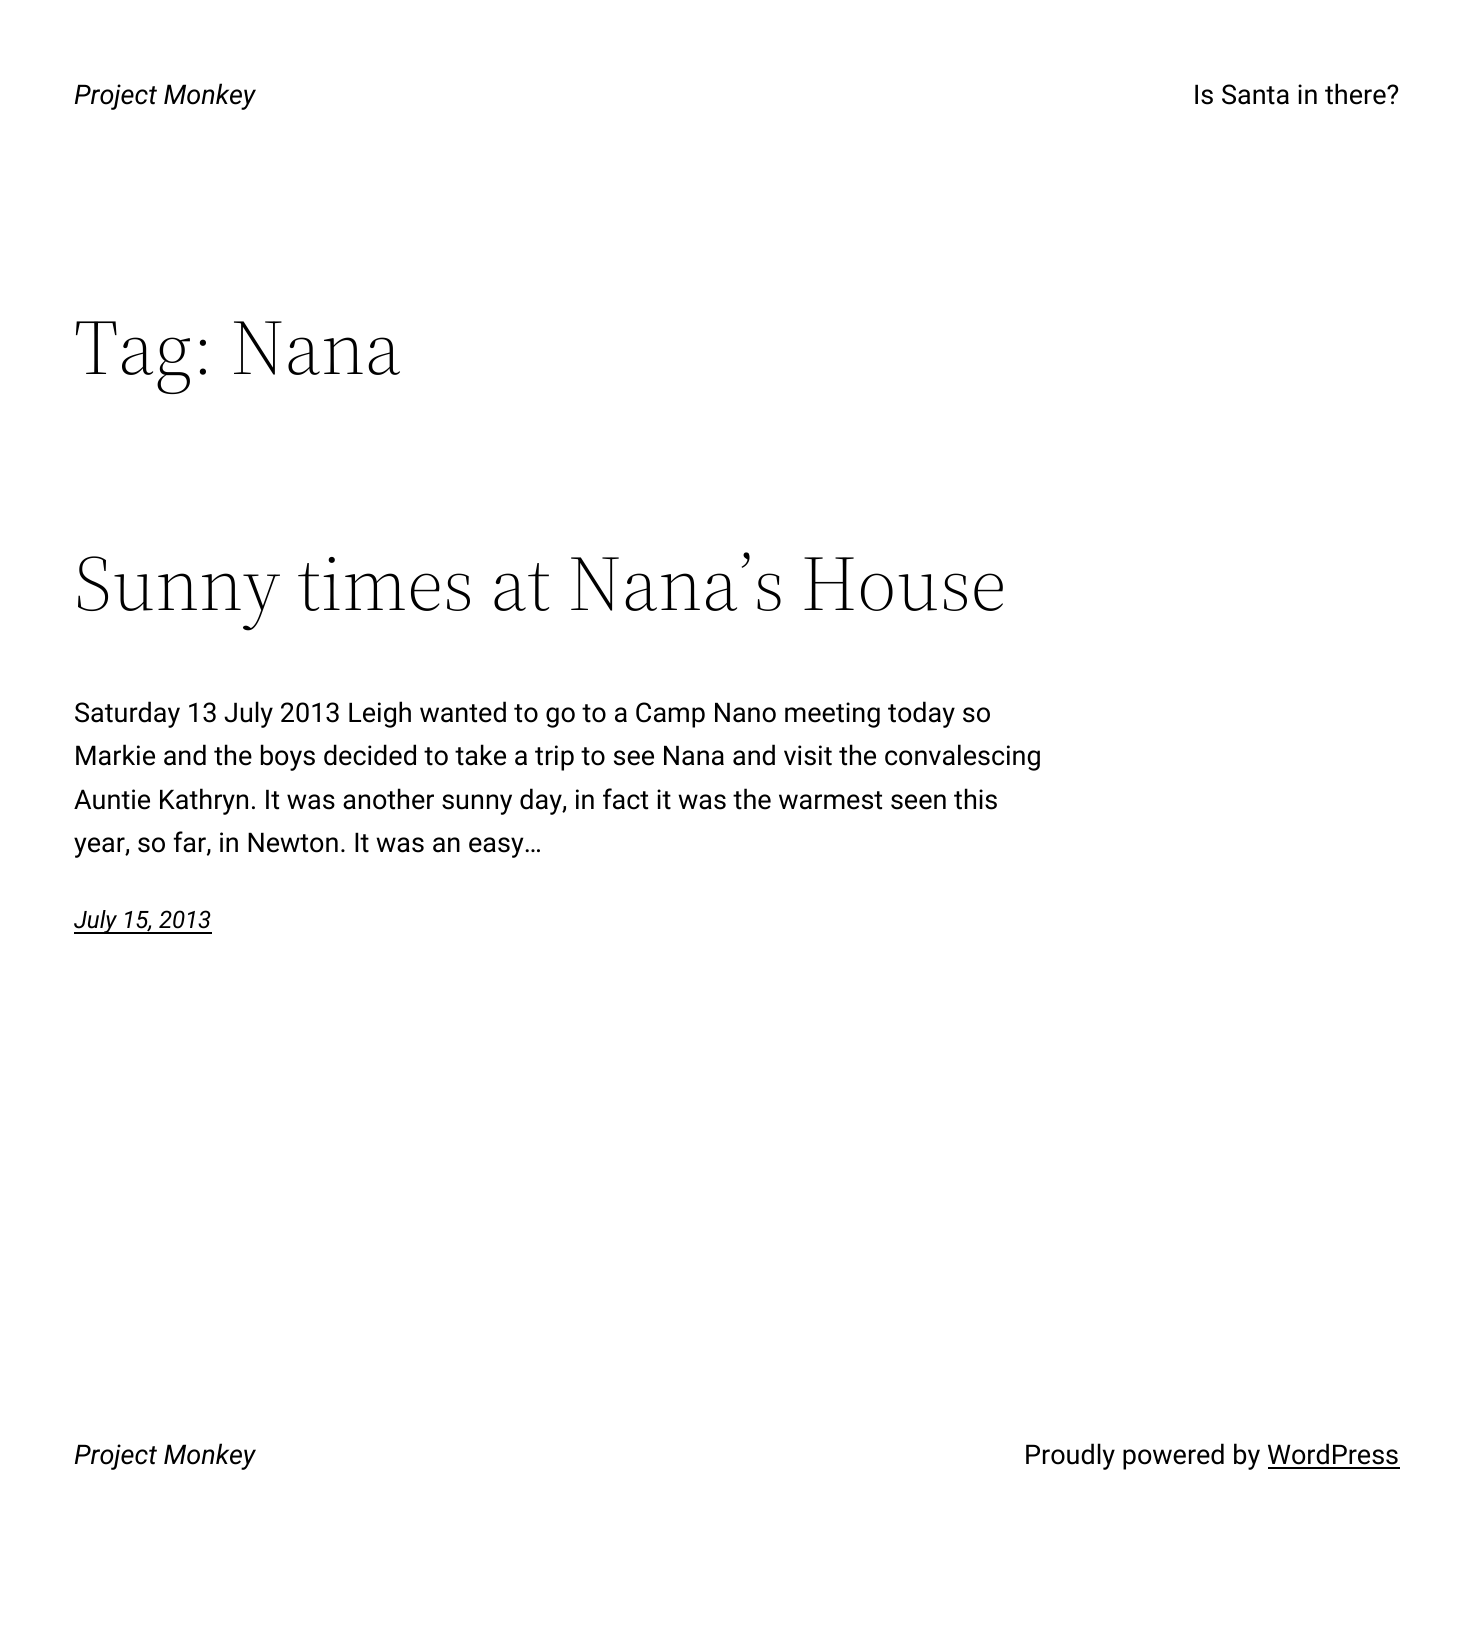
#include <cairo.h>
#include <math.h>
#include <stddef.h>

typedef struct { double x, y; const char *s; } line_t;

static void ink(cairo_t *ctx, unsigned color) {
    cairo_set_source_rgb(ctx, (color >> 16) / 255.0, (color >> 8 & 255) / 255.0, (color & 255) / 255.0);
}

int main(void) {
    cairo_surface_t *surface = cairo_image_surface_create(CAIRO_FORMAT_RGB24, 1473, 1635);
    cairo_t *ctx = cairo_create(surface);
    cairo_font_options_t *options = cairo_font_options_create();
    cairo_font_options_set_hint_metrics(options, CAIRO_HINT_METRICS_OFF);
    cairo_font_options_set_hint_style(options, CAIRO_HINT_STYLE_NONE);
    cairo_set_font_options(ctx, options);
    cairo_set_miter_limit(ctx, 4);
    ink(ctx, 0xFFFFFF);
    cairo_paint(ctx);
    cairo_select_font_face(ctx, "Roboto", CAIRO_FONT_SLANT_ITALIC, CAIRO_FONT_WEIGHT_NORMAL);
    cairo_set_font_size(ctx, 27);
    ink(ctx, 0x000000);
    cairo_move_to(ctx, 74, 104);
    cairo_show_text(ctx, "Project Monkey");
    cairo_select_font_face(ctx, "Roboto", CAIRO_FONT_SLANT_NORMAL, CAIRO_FONT_WEIGHT_NORMAL);
    cairo_move_to(ctx, 1193, 104);
    cairo_show_text(ctx, "Is Santa in there?");
    cairo_select_font_face(ctx, "Source Serif 4 Light", CAIRO_FONT_SLANT_NORMAL, CAIRO_FONT_WEIGHT_NORMAL);
    cairo_set_font_size(ctx, 78);
    cairo_move_to(ctx, 74, 374);
    cairo_show_text(ctx, "Tag: Nana");
    cairo_move_to(ctx, 74, 610);
    cairo_show_text(ctx, "Sunny times at Nana’s House");
    cairo_select_font_face(ctx, "Roboto", CAIRO_FONT_SLANT_NORMAL, CAIRO_FONT_WEIGHT_NORMAL);
    cairo_set_font_size(ctx, 27);
    {
        static const line_t items[] = {
            {74, 722, "Saturday 13 July 2013 Leigh wanted to go to a Camp Nano meeting today so"},
            {74, 765, "Markie and the boys decided to take a trip to see Nana and visit the convalescing"},
            {74, 809, "Auntie Kathryn. It was another sunny day, in fact it was the warmest seen this"},
            {74, 852, "year, so far, in Newton. It was an easy…"},
        };
        for (size_t i = 0; i < sizeof items / sizeof *items; i++) {
            cairo_move_to(ctx, items[i].x, items[i].y);
            cairo_show_text(ctx, items[i].s);
        }
    }
    cairo_rectangle(ctx, 74, 932, 138, 2);
    cairo_fill(ctx);
    cairo_select_font_face(ctx, "Roboto", CAIRO_FONT_SLANT_ITALIC, CAIRO_FONT_WEIGHT_NORMAL);
    cairo_set_font_size(ctx, 24);
    cairo_move_to(ctx, 74, 928);
    cairo_show_text(ctx, "July 15, 2013");
    cairo_set_font_size(ctx, 27);
    cairo_move_to(ctx, 74, 1464);
    cairo_show_text(ctx, "Project Monkey");
    cairo_select_font_face(ctx, "Roboto", CAIRO_FONT_SLANT_NORMAL, CAIRO_FONT_WEIGHT_NORMAL);
    cairo_move_to(ctx, 1024, 1464);
    cairo_show_text(ctx, "Proudly powered by WordPress");
    cairo_rectangle(ctx, 1268, 1467, 132, 2);
    cairo_fill(ctx);
    cairo_surface_write_to_png(surface, "image.png");
    cairo_font_options_destroy(options);
    cairo_destroy(ctx);
    cairo_surface_destroy(surface);
    return 0;
}
